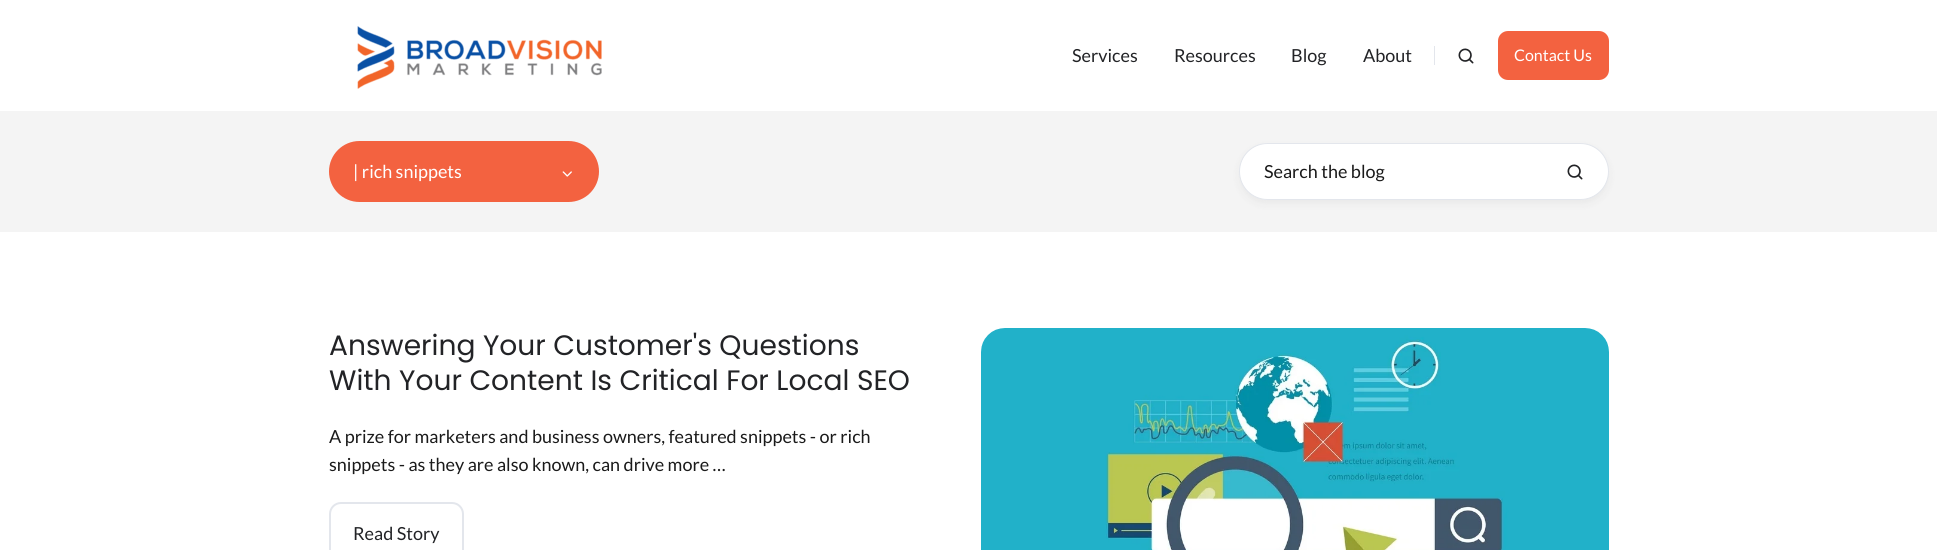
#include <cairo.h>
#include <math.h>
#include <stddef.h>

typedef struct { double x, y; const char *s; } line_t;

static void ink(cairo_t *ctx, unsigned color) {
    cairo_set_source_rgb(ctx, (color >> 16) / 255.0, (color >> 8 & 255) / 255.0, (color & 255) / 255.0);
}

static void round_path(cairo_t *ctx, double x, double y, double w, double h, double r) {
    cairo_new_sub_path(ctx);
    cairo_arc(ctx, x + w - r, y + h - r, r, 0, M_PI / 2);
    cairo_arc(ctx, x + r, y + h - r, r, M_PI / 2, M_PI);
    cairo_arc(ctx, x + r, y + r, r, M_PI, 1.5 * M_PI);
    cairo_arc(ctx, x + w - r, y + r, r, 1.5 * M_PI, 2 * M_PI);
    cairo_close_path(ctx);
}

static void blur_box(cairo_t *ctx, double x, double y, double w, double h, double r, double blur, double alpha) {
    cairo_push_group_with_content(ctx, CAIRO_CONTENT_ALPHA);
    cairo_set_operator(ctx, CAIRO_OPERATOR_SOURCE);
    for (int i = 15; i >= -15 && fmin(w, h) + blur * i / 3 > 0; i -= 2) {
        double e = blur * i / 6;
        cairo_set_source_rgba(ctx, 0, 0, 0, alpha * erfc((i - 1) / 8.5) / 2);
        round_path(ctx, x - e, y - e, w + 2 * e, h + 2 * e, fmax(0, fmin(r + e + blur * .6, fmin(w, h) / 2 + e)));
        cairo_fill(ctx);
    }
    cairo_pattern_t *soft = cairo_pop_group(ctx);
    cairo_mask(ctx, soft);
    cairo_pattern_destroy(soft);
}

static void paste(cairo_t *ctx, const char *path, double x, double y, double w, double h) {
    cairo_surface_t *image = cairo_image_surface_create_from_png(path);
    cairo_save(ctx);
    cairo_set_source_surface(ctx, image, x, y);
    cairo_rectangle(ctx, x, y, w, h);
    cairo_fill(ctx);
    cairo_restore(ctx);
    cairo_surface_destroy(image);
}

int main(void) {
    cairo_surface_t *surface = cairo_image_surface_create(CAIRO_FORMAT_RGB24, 1937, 550);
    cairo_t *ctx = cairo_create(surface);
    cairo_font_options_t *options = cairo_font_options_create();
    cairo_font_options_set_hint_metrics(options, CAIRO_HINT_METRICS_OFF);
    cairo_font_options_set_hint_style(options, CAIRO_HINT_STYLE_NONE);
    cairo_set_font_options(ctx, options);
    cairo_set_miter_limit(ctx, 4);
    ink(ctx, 0xFFFFFF);
    cairo_paint(ctx);
    paste(ctx, "media/1.png", 357, 26, 245, 63);
    cairo_select_font_face(ctx, "Lato", CAIRO_FONT_SLANT_NORMAL, CAIRO_FONT_WEIGHT_NORMAL);
    cairo_set_font_size(ctx, 18);
    ink(ctx, 0x222326);
    {
        static const line_t items[] = {
            {1072, 62, "Services"},
            {1174, 62, "Resources"},
            {1291, 62, "Blog"},
            {1363, 62, "About"},
        };
        for (size_t i = 0; i < sizeof items / sizeof *items; i++) {
            cairo_move_to(ctx, items[i].x, items[i].y);
            cairo_show_text(ctx, items[i].s);
        }
    }
    ink(ctx, 0xE3E6EC);
    cairo_rectangle(ctx, 1434, 46, 1, 19);
    cairo_fill(ctx);
    paste(ctx, "media/2.png", 1458, 48, 16, 16);
    ink(ctx, 0xF36240);
    round_path(ctx, 1498, 31, 111, 49, 10);
    cairo_fill(ctx);
    cairo_set_font_size(ctx, 16);
    ink(ctx, 0xFFFFFF);
    cairo_move_to(ctx, 1514, 61);
    cairo_show_text(ctx, "Contact Us");
    ink(ctx, 0xF4F4F4);
    cairo_rectangle(ctx, 0, 111, 1937, 121);
    cairo_fill(ctx);
    ink(ctx, 0xF36240);
    round_path(ctx, 329, 141, 270, 61, 30.5);
    cairo_fill(ctx);
    cairo_set_font_size(ctx, 18);
    ink(ctx, 0xFFFFFF);
    cairo_move_to(ctx, 353, 178);
    cairo_show_text(ctx, "| rich snippets");
    paste(ctx, "media/3.png", 562, 171, 10, 6);
    ink(ctx, 0x222326);
    blur_box(ctx, 1239, 147, 370, 57, 28.5, 4, 0.05);
    ink(ctx, 0xFFFFFF);
    round_path(ctx, 1239.5, 143.5, 369, 56, 28);
    cairo_fill_preserve(ctx);
    ink(ctx, 0xE3E6EC);
    cairo_set_line_width(ctx, 1);
    cairo_stroke(ctx);
    ink(ctx, 0x1A1A1A);
    cairo_move_to(ctx, 1264, 178);
    cairo_show_text(ctx, "Search the blog");
    paste(ctx, "media/2.png", 1567, 164, 16, 16);
    cairo_select_font_face(ctx, "Poppins", CAIRO_FONT_SLANT_NORMAL, CAIRO_FONT_WEIGHT_NORMAL);
    cairo_set_font_size(ctx, 28.1);
    ink(ctx, 0x222326);
    cairo_move_to(ctx, 329, 355);
    cairo_show_text(ctx, "Answering Your Customer's Questions");
    cairo_move_to(ctx, 329, 390);
    cairo_show_text(ctx, "With Your Content Is Critical For Local SEO");
    cairo_select_font_face(ctx, "Lato", CAIRO_FONT_SLANT_NORMAL, CAIRO_FONT_WEIGHT_NORMAL);
    cairo_set_font_size(ctx, 18);
    ink(ctx, 0x1A1A1A);
    cairo_move_to(ctx, 329, 443);
    cairo_show_text(ctx, "A prize for marketers and business owners, featured snippets - or rich");
    cairo_move_to(ctx, 329, 471);
    cairo_show_text(ctx, "snippets - as they are also known, can drive more …");
    round_path(ctx, 330, 503, 133, 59, 11);
    ink(ctx, 0xE3E6EC);
    cairo_set_line_width(ctx, 2);
    cairo_stroke(ctx);
    ink(ctx, 0x222326);
    cairo_move_to(ctx, 353, 540);
    cairo_show_text(ctx, "Read Story");
    paste(ctx, "media/4.png", 981, 328, 628, 222);
    cairo_surface_write_to_png(surface, "image.png");
    cairo_font_options_destroy(options);
    cairo_destroy(ctx);
    cairo_surface_destroy(surface);
    return 0;
}
